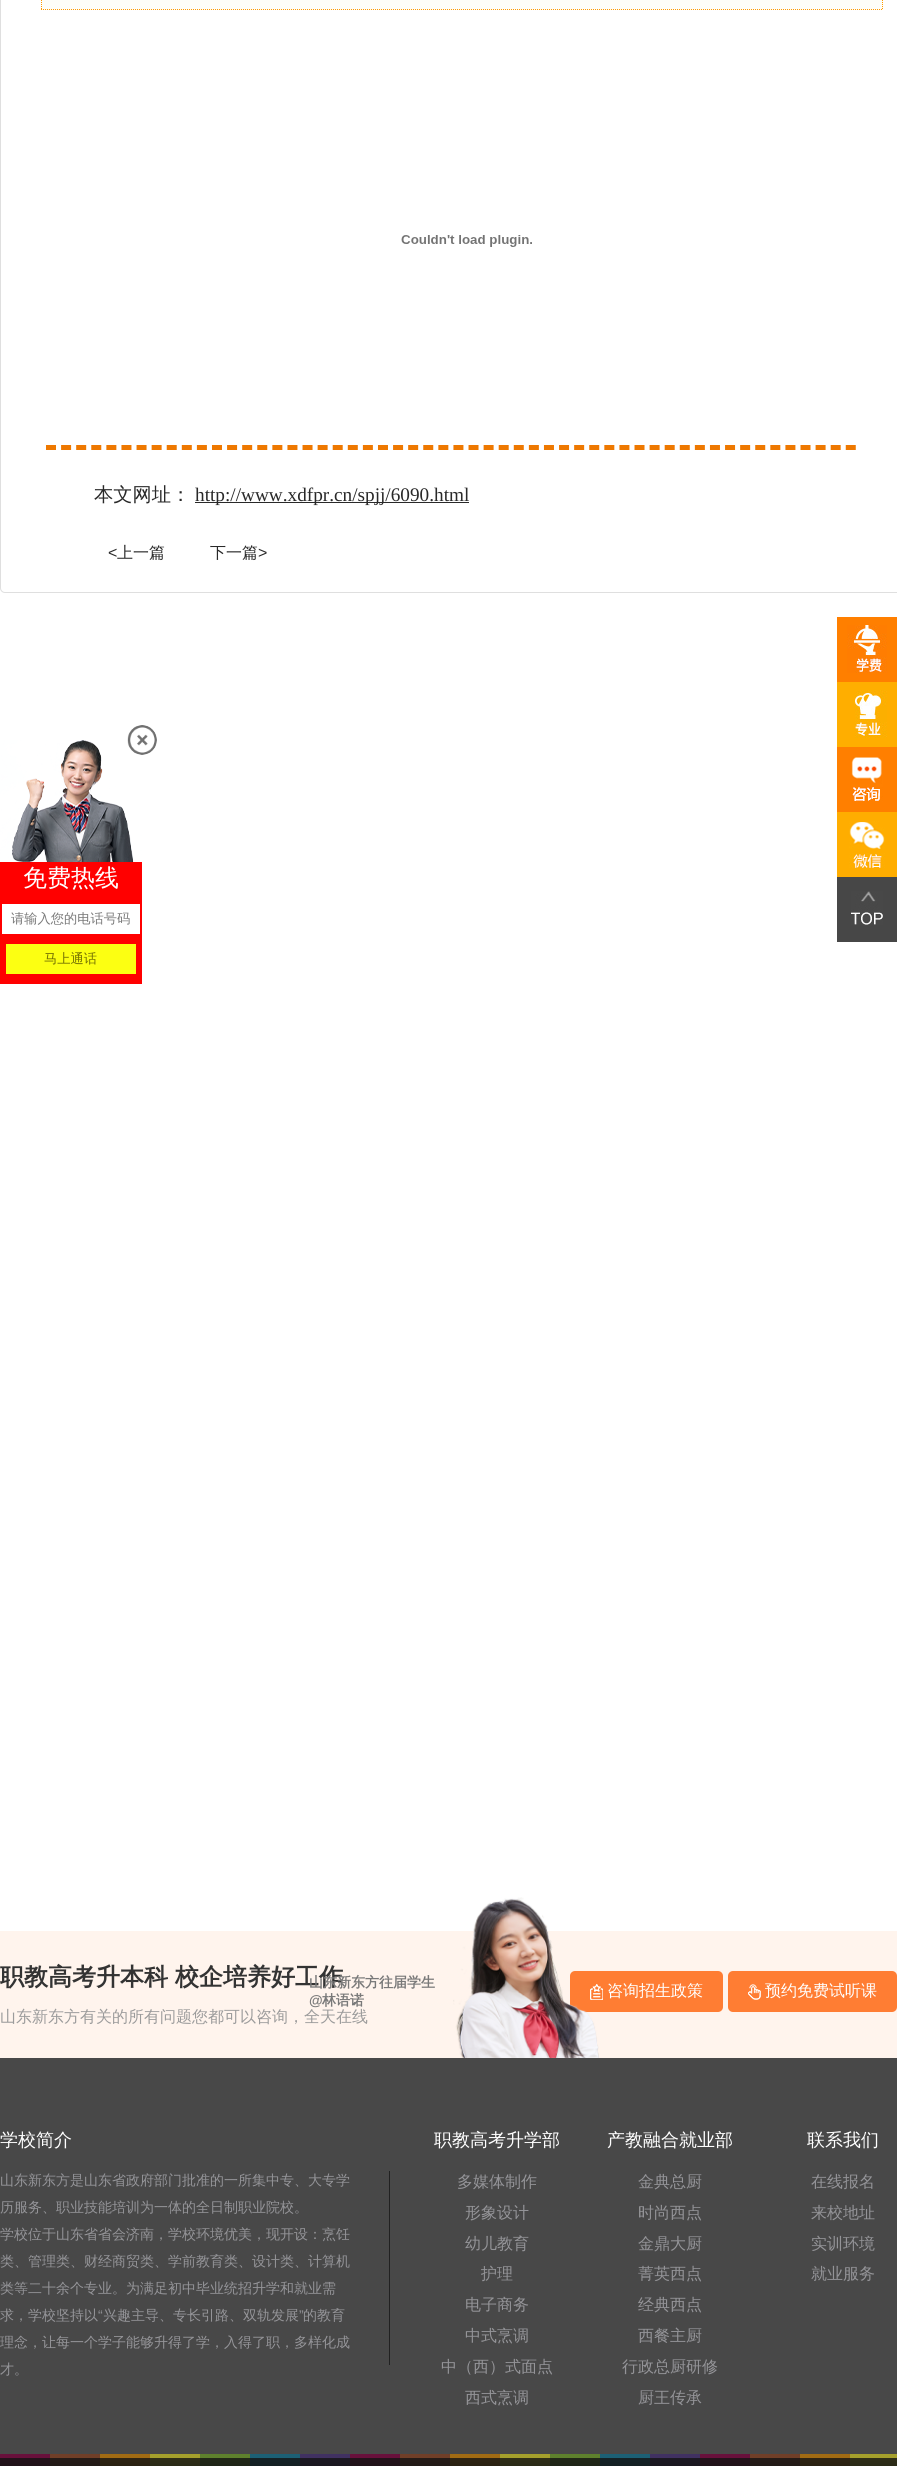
#include <cairo.h>
#include <math.h>
#include <stddef.h>

typedef struct { double x, y; const char *s; } line_t;
typedef struct { double x, y, w, h; unsigned color; } box_t;

static void ink(cairo_t *ctx, unsigned color) {
    cairo_set_source_rgb(ctx, (color >> 16) / 255.0, (color >> 8 & 255) / 255.0, (color & 255) / 255.0);
}

static void round_path(cairo_t *ctx, double x, double y, double w, double h, double r) {
    cairo_new_sub_path(ctx);
    cairo_arc(ctx, x + w - r, y + h - r, r, 0, M_PI / 2);
    cairo_arc(ctx, x + r, y + h - r, r, M_PI / 2, M_PI);
    cairo_arc(ctx, x + r, y + r, r, M_PI, 1.5 * M_PI);
    cairo_arc(ctx, x + w - r, y + r, r, 1.5 * M_PI, 2 * M_PI);
    cairo_close_path(ctx);
}

static void paste(cairo_t *ctx, const char *path, double x, double y, double w, double h) {
    cairo_surface_t *image = cairo_image_surface_create_from_png(path);
    cairo_save(ctx);
    cairo_set_source_surface(ctx, image, x, y);
    cairo_rectangle(ctx, x, y, w, h);
    cairo_fill(ctx);
    cairo_restore(ctx);
    cairo_surface_destroy(image);
}

int main(void) {
    cairo_surface_t *surface = cairo_image_surface_create(CAIRO_FORMAT_RGB24, 897, 2466);
    cairo_t *ctx = cairo_create(surface);
    cairo_font_options_t *options = cairo_font_options_create();
    cairo_font_options_set_hint_metrics(options, CAIRO_HINT_METRICS_OFF);
    cairo_font_options_set_hint_style(options, CAIRO_HINT_STYLE_NONE);
    cairo_set_font_options(ctx, options);
    cairo_set_miter_limit(ctx, 4);
    cairo_pattern_t *gradient;
    ink(ctx, 0xFFFFFF);
    cairo_paint(ctx);
    round_path(ctx, 0.5, -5.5, 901, 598, 4.5);
    ink(ctx, 0xDFDFDF);
    cairo_set_line_width(ctx, 1);
    cairo_stroke(ctx);
    ink(ctx, 0xFEFEF8);
    cairo_rectangle(ctx, 41, 0, 842, 10);
    cairo_fill(ctx);
    cairo_new_path(ctx);
    cairo_move_to(ctx, 882.5, -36);
    cairo_line_to(ctx, 882.5, 10);
    ink(ctx, 0xFF9900);
    cairo_set_dash(ctx, (double[]){1, 1}, 2, 0);
    cairo_stroke(ctx);
    cairo_new_path(ctx);
    cairo_move_to(ctx, 41, 9.5);
    cairo_line_to(ctx, 883, 9.5);
    cairo_stroke(ctx);
    cairo_new_path(ctx);
    cairo_move_to(ctx, 41.5, -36);
    cairo_line_to(ctx, 41.5, 10);
    cairo_stroke(ctx);
    paste(ctx, "media/1.png", 401, 235, 131, 12);
    cairo_new_path(ctx);
    cairo_move_to(ctx, 46, 447.5);
    cairo_line_to(ctx, 856, 447.5);
    ink(ctx, 0xEE7800);
    cairo_set_line_width(ctx, 5);
    cairo_set_dash(ctx, (double[]){10, 5.09}, 2, 0);
    cairo_stroke(ctx);
    cairo_select_font_face(ctx, "WenQuanYi Zen Hei Medium", CAIRO_FONT_SLANT_NORMAL, CAIRO_FONT_WEIGHT_NORMAL);
    cairo_set_font_size(ctx, 19.25);
    ink(ctx, 0x292929);
    cairo_move_to(ctx, 94, 501);
    cairo_show_text(ctx, "本文网址：");
    cairo_rectangle(ctx, 195, 502, 274, 1);
    cairo_fill(ctx);
    cairo_select_font_face(ctx, "Liberation Serif", CAIRO_FONT_SLANT_NORMAL, CAIRO_FONT_WEIGHT_NORMAL);
    cairo_move_to(ctx, 195, 501);
    cairo_show_text(ctx, "http://www.xdfpr.cn/spjj/6090.html");
    cairo_select_font_face(ctx, "Liberation Sans", CAIRO_FONT_SLANT_NORMAL, CAIRO_FONT_WEIGHT_NORMAL);
    cairo_set_font_size(ctx, 16);
    cairo_move_to(ctx, 108, 558);
    cairo_show_text(ctx, "<");
    cairo_select_font_face(ctx, "WenQuanYi Zen Hei Medium", CAIRO_FONT_SLANT_NORMAL, CAIRO_FONT_WEIGHT_NORMAL);
    cairo_move_to(ctx, 117, 558);
    cairo_show_text(ctx, "上一篇");
    cairo_move_to(ctx, 210, 558);
    cairo_show_text(ctx, "下一篇");
    cairo_select_font_face(ctx, "Liberation Sans", CAIRO_FONT_SLANT_NORMAL, CAIRO_FONT_WEIGHT_NORMAL);
    cairo_move_to(ctx, 258, 558);
    cairo_show_text(ctx, ">");
    paste(ctx, "media/2.png", 0, 740, 142, 244);
    paste(ctx, "media/3.png", 127, 725, 30, 30);
    cairo_select_font_face(ctx, "WenQuanYi Zen Hei Medium", CAIRO_FONT_SLANT_NORMAL, CAIRO_FONT_WEIGHT_NORMAL);
    cairo_set_font_size(ctx, 24);
    ink(ctx, 0xFFFFFF);
    cairo_move_to(ctx, 23, 886);
    cairo_show_text(ctx, "免费热线");
    cairo_rectangle(ctx, 2, 904, 138, 30);
    cairo_fill(ctx);
    cairo_set_font_size(ctx, 13.25);
    ink(ctx, 0x797979);
    cairo_move_to(ctx, 11, 923);
    cairo_show_text(ctx, "请输入您的电话号码");
    ink(ctx, 0xFCFF12);
    cairo_rectangle(ctx, 6, 944, 130, 30);
    cairo_fill(ctx);
    ink(ctx, 0x737002);
    cairo_move_to(ctx, 44, 963);
    cairo_show_text(ctx, "马上通话");
    ink(ctx, 0xFF7F00);
    cairo_rectangle(ctx, 837, 617, 60, 65);
    cairo_fill(ctx);
    paste(ctx, "media/4.png", 847, 625, 40, 48);
    ink(ctx, 0xFFAE00);
    cairo_rectangle(ctx, 837, 682, 60, 65);
    cairo_fill(ctx);
    paste(ctx, "media/5.png", 855, 690, 32, 48);
    ink(ctx, 0xFF7F00);
    cairo_rectangle(ctx, 837, 747, 60, 65);
    cairo_fill(ctx);
    paste(ctx, "media/6.png", 851, 757, 32, 45);
    ink(ctx, 0xFFAD00);
    cairo_rectangle(ctx, 837, 812, 60, 65);
    cairo_fill(ctx);
    paste(ctx, "media/7.png", 849, 821, 36, 47);
    ink(ctx, 0x474747);
    cairo_rectangle(ctx, 837, 877, 60, 65);
    cairo_fill(ctx);
    paste(ctx, "media/8.png", 851, 891, 32, 34);
    ink(ctx, 0xFFF4ED);
    cairo_rectangle(ctx, 0, 1931, 897, 127);
    cairo_fill(ctx);
    cairo_select_font_face(ctx, "WenQuanYi Zen Hei", CAIRO_FONT_SLANT_NORMAL, CAIRO_FONT_WEIGHT_BOLD);
    cairo_set_font_size(ctx, 24);
    ink(ctx, 0x333333);
    cairo_move_to(ctx, 0, 1985);
    cairo_show_text(ctx, "职教高考升本科");
    cairo_move_to(ctx, 175, 1985);
    cairo_show_text(ctx, "校企培养好工作");
    cairo_select_font_face(ctx, "WenQuanYi Zen Hei Medium", CAIRO_FONT_SLANT_NORMAL, CAIRO_FONT_WEIGHT_NORMAL);
    cairo_set_font_size(ctx, 16);
    ink(ctx, 0x9B9B9B);
    cairo_move_to(ctx, 0, 2022);
    cairo_show_text(ctx, "山东新东方有关的所有问题您都可以咨询，全天在线");
    cairo_select_font_face(ctx, "WenQuanYi Zen Hei", CAIRO_FONT_SLANT_NORMAL, CAIRO_FONT_WEIGHT_BOLD);
    cairo_set_font_size(ctx, 14);
    ink(ctx, 0x797979);
    cairo_move_to(ctx, 309, 1987);
    cairo_show_text(ctx, "山东新东方往届学生");
    cairo_select_font_face(ctx, "Liberation Sans", CAIRO_FONT_SLANT_NORMAL, CAIRO_FONT_WEIGHT_BOLD);
    cairo_move_to(ctx, 309, 2005);
    cairo_show_text(ctx, "@");
    cairo_select_font_face(ctx, "WenQuanYi Zen Hei", CAIRO_FONT_SLANT_NORMAL, CAIRO_FONT_WEIGHT_BOLD);
    cairo_move_to(ctx, 322, 2005);
    cairo_show_text(ctx, "林语诺");
    ink(ctx, 0xFF7D33);
    round_path(ctx, 570, 1971, 153, 41, 5);
    cairo_fill(ctx);
    paste(ctx, "media/10.png", 590, 1984, 13, 16);
    paste(ctx, "media/9.png", 453, 1897, 146, 161);
    cairo_select_font_face(ctx, "WenQuanYi Zen Hei Medium", CAIRO_FONT_SLANT_NORMAL, CAIRO_FONT_WEIGHT_NORMAL);
    cairo_set_font_size(ctx, 16);
    ink(ctx, 0xFFFFFF);
    cairo_move_to(ctx, 607, 1996);
    cairo_show_text(ctx, "咨询招生政策");
    ink(ctx, 0xFF7D33);
    round_path(ctx, 728, 1971, 169, 41, 5);
    cairo_fill(ctx);
    paste(ctx, "media/11.png", 748, 1984, 13, 16);
    ink(ctx, 0xFFFFFF);
    cairo_move_to(ctx, 765, 1996);
    cairo_show_text(ctx, "预约免费试听课");
    ink(ctx, 0x484848);
    cairo_rectangle(ctx, 0, 2058, 897, 396);
    cairo_fill(ctx);
    cairo_set_font_size(ctx, 18);
    ink(ctx, 0xFFFFFF);
    cairo_move_to(ctx, 0, 2146);
    cairo_show_text(ctx, "学校简介");
    ink(ctx, 0x212121);
    cairo_rectangle(ctx, 389, 2171, 1, 194);
    cairo_fill(ctx);
    cairo_set_font_size(ctx, 14);
    ink(ctx, 0x949498);
    {
        static const line_t items[] = {
            {0, 2185, "山东新东方是山东省政府部门批准的一所集中专、大专学"},
            {0, 2212, "历服务、职业技能培训为一体的全日制职业院校。"},
            {0, 2239, "学校位于山东省省会济南，学校环境优美，现开设：烹饪"},
            {0, 2266, "类、管理类、财经商贸类、学前教育类、设计类、计算机"},
            {0, 2293, "类等二十余个专业。为满足初中毕业统招升学和就业需"},
            {0, 2320, "求，学校坚持以"},
        };
        for (size_t i = 0; i < sizeof items / sizeof *items; i++) {
            cairo_move_to(ctx, items[i].x, items[i].y);
            cairo_show_text(ctx, items[i].s);
        }
    }
    cairo_select_font_face(ctx, "Liberation Sans", CAIRO_FONT_SLANT_NORMAL, CAIRO_FONT_WEIGHT_NORMAL);
    cairo_move_to(ctx, 98, 2320);
    cairo_show_text(ctx, "“");
    cairo_select_font_face(ctx, "WenQuanYi Zen Hei Medium", CAIRO_FONT_SLANT_NORMAL, CAIRO_FONT_WEIGHT_NORMAL);
    cairo_move_to(ctx, 103, 2320);
    cairo_show_text(ctx, "兴趣主导、专长引路、双轨发展");
    cairo_select_font_face(ctx, "Liberation Sans", CAIRO_FONT_SLANT_NORMAL, CAIRO_FONT_WEIGHT_NORMAL);
    cairo_move_to(ctx, 299, 2320);
    cairo_show_text(ctx, "”");
    cairo_select_font_face(ctx, "WenQuanYi Zen Hei Medium", CAIRO_FONT_SLANT_NORMAL, CAIRO_FONT_WEIGHT_NORMAL);
    {
        static const line_t items[] = {
            {303, 2320, "的教育"},
            {0, 2347, "理念，让每一个学子能够升得了学，入得了职，多样化成"},
            {0, 2374, "才。"},
        };
        for (size_t i = 0; i < sizeof items / sizeof *items; i++) {
            cairo_move_to(ctx, items[i].x, items[i].y);
            cairo_show_text(ctx, items[i].s);
        }
    }
    cairo_set_font_size(ctx, 18);
    ink(ctx, 0xFFFFFF);
    cairo_move_to(ctx, 434, 2146);
    cairo_show_text(ctx, "职教高考升学部");
    cairo_set_font_size(ctx, 16);
    ink(ctx, 0x949498);
    {
        static const line_t items[] = {
            {457, 2187, "多媒体制作"},
            {465, 2218, "形象设计"},
            {465, 2249, "幼儿教育"},
            {481, 2279, "护理"},
            {465, 2310, "电子商务"},
            {465, 2341, "中式烹调"},
            {441, 2372, "中（西）式面点"},
            {465, 2403, "西式烹调"},
        };
        for (size_t i = 0; i < sizeof items / sizeof *items; i++) {
            cairo_move_to(ctx, items[i].x, items[i].y);
            cairo_show_text(ctx, items[i].s);
        }
    }
    cairo_set_font_size(ctx, 18);
    ink(ctx, 0xFFFFFF);
    cairo_move_to(ctx, 607, 2146);
    cairo_show_text(ctx, "产教融合就业部");
    cairo_set_font_size(ctx, 16);
    ink(ctx, 0x949498);
    {
        static const line_t items[] = {
            {638, 2187, "金典总厨"},
            {638, 2218, "时尚西点"},
            {638, 2249, "金鼎大厨"},
            {638, 2279, "菁英西点"},
            {638, 2310, "经典西点"},
            {638, 2341, "西餐主厨"},
            {622, 2372, "行政总厨研修"},
            {638, 2403, "厨王传承"},
        };
        for (size_t i = 0; i < sizeof items / sizeof *items; i++) {
            cairo_move_to(ctx, items[i].x, items[i].y);
            cairo_show_text(ctx, items[i].s);
        }
    }
    cairo_set_font_size(ctx, 18);
    ink(ctx, 0xFFFFFF);
    cairo_move_to(ctx, 807, 2146);
    cairo_show_text(ctx, "联系我们");
    cairo_set_font_size(ctx, 16);
    ink(ctx, 0x949498);
    {
        static const line_t items[] = {
            {811, 2187, "在线报名"},
            {811, 2218, "来校地址"},
            {811, 2249, "实训环境"},
            {811, 2279, "就业服务"},
        };
        for (size_t i = 0; i < sizeof items / sizeof *items; i++) {
            cairo_move_to(ctx, items[i].x, items[i].y);
            cairo_show_text(ctx, items[i].s);
        }
    }
    {
        static const box_t items[] = {
            {0, 2454, 50, 12, 0x68103B},
            {50, 2454, 50, 12, 0x703F28},
            {100, 2454, 50, 12, 0xA16B13},
            {150, 2454, 50, 12, 0xA5A02C},
            {200, 2454, 50, 12, 0x5E812D},
            {250, 2454, 50, 12, 0x1C6075},
            {300, 2454, 50, 12, 0x403161},
            {350, 2454, 50, 12, 0x68103B},
            {400, 2454, 50, 12, 0x703F28},
            {450, 2454, 50, 12, 0xA16B13},
            {500, 2454, 50, 12, 0xA5A02C},
            {550, 2454, 50, 12, 0x5E812D},
            {600, 2454, 50, 12, 0x1C6075},
            {650, 2454, 50, 12, 0x403161},
            {700, 2454, 50, 12, 0x68103B},
            {750, 2454, 50, 12, 0x703F28},
            {800, 2454, 50, 12, 0xA16B13},
            {850, 2454, 47, 12, 0xA5A02C},
        };
        for (size_t i = 0; i < sizeof items / sizeof *items; i++) {
            ink(ctx, items[i].color);
            cairo_rectangle(ctx, items[i].x, items[i].y, items[i].w, items[i].h);
            cairo_fill(ctx);
        }
    }
    gradient = cairo_pattern_create_linear(449, 2458, 449, 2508);
    cairo_pattern_add_color_stop_rgba(gradient, 0, 0.071, 0.071, 0.071, 0.8);
    cairo_pattern_add_color_stop_rgba(gradient, 1, 0.071, 0.071, 0.071, 1);
    cairo_set_source(ctx, gradient);
    cairo_pattern_destroy(gradient);
    cairo_rectangle(ctx, 0, 2458, 897, 8);
    cairo_fill(ctx);
    cairo_surface_write_to_png(surface, "image.png");
    cairo_font_options_destroy(options);
    cairo_destroy(ctx);
    cairo_surface_destroy(surface);
    return 0;
}
